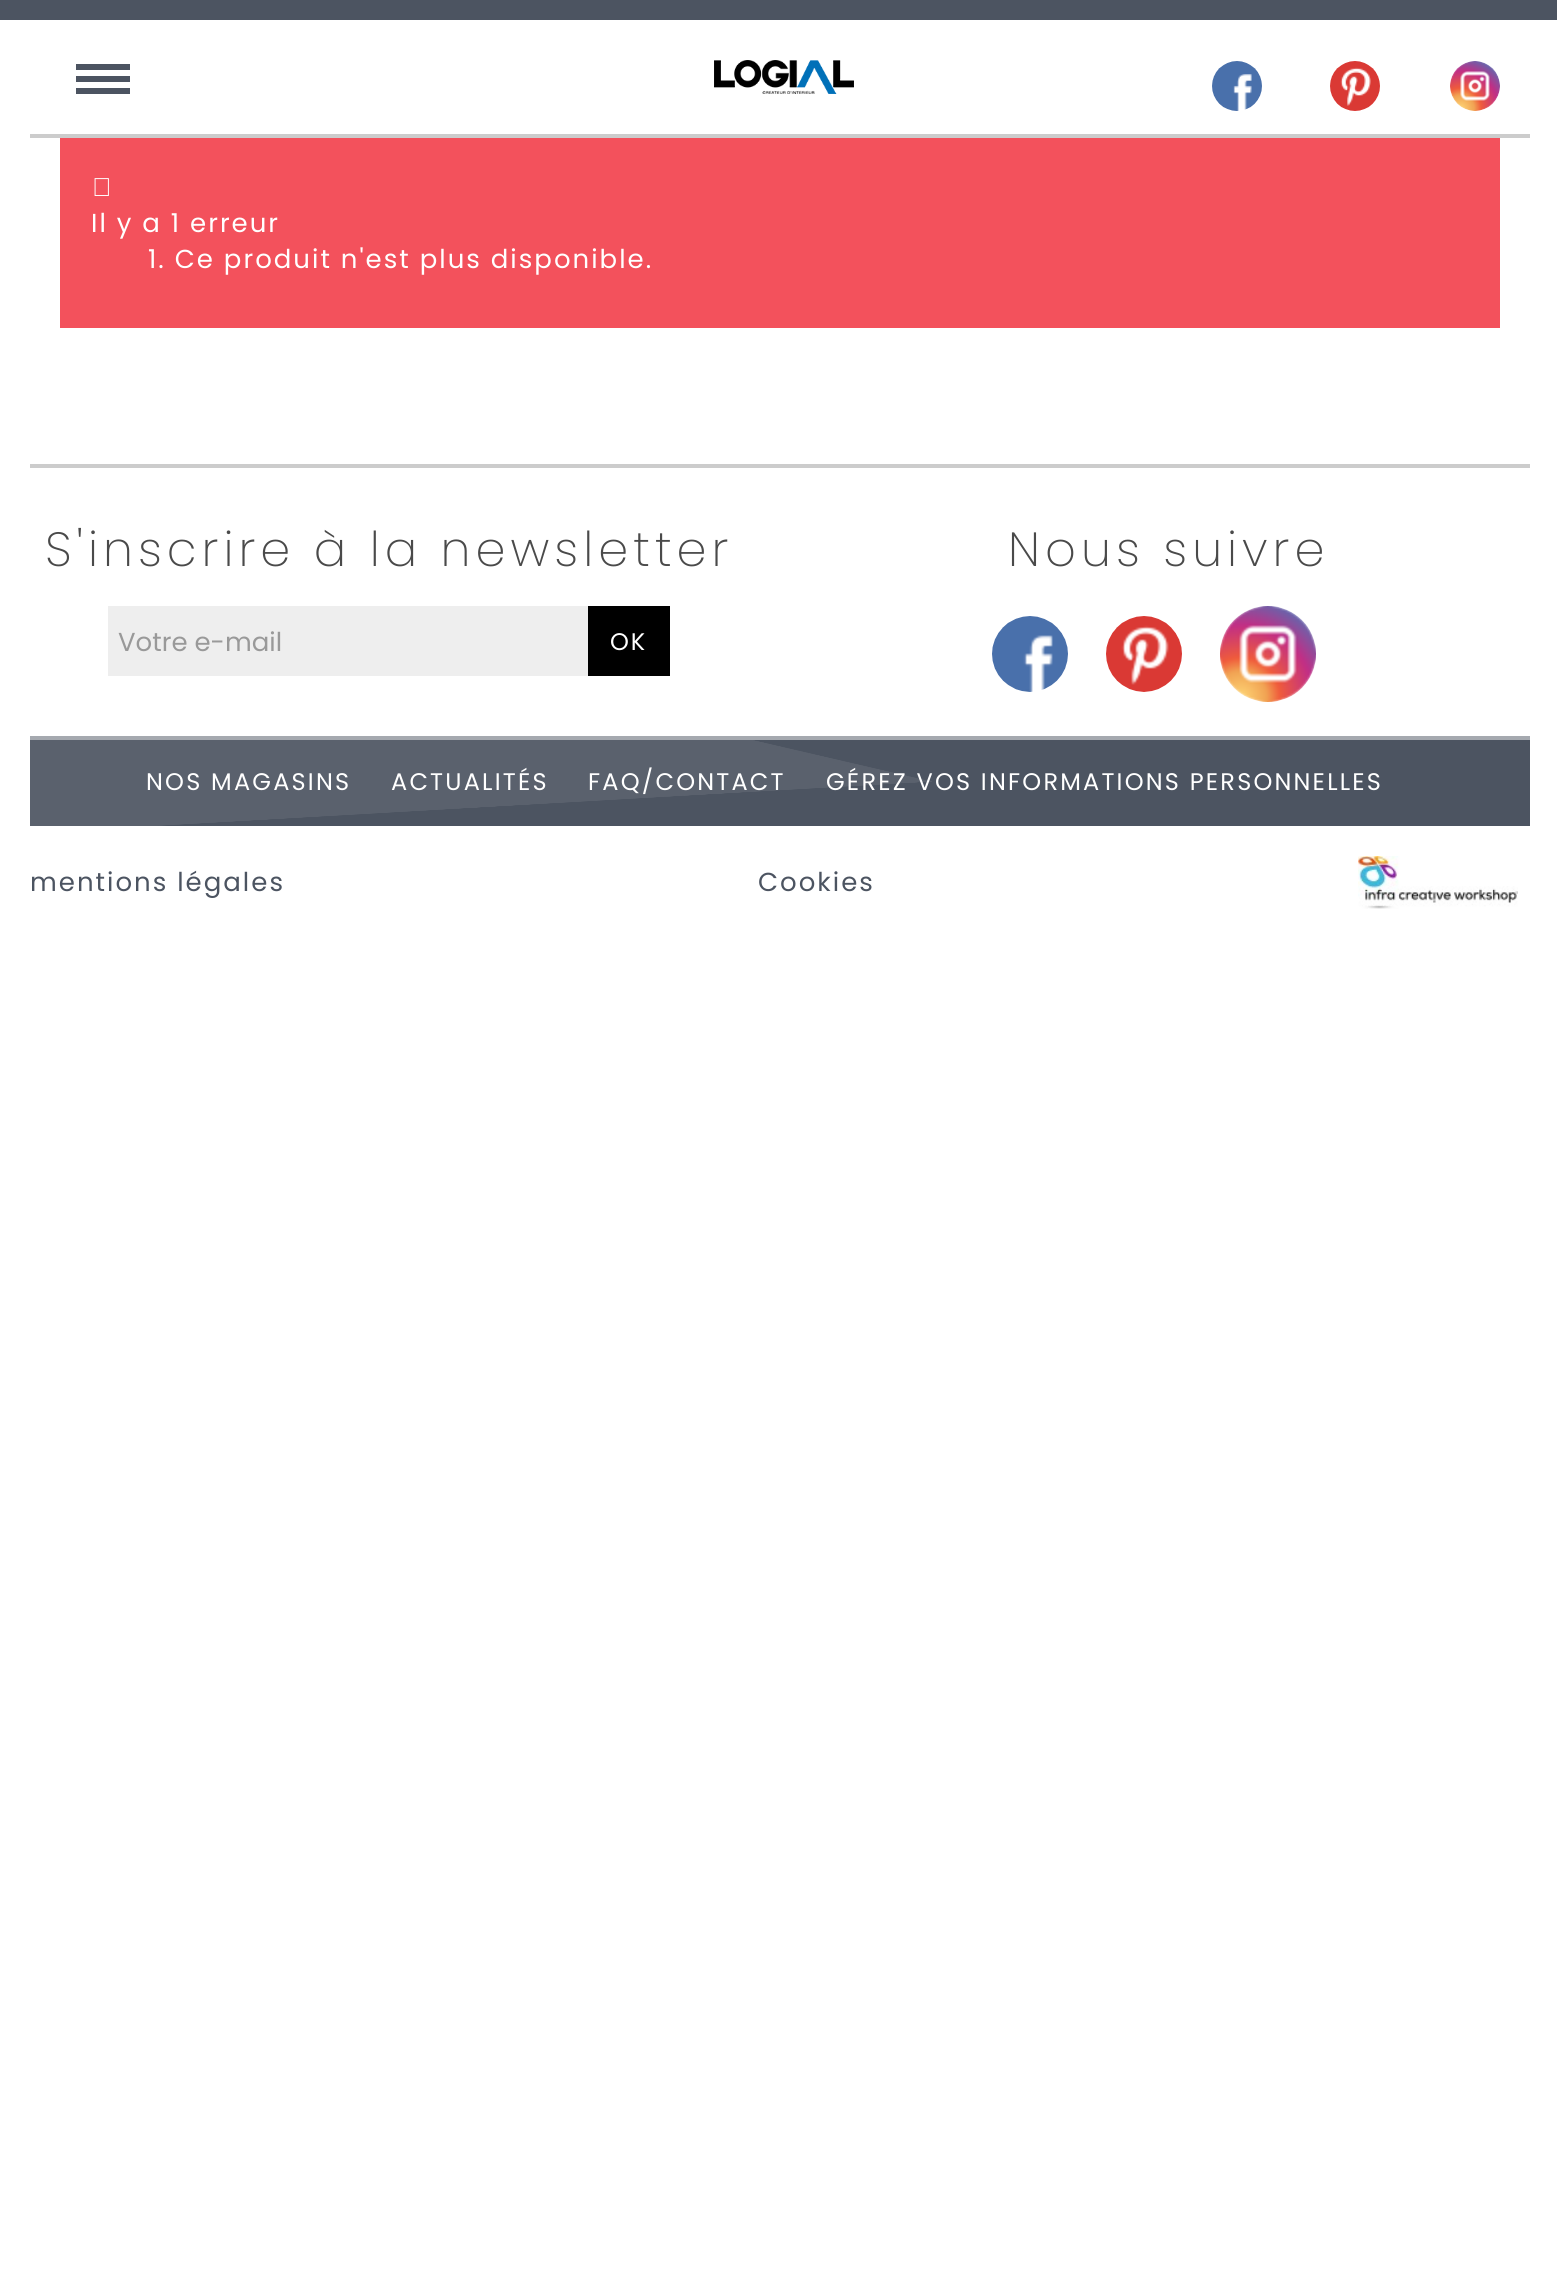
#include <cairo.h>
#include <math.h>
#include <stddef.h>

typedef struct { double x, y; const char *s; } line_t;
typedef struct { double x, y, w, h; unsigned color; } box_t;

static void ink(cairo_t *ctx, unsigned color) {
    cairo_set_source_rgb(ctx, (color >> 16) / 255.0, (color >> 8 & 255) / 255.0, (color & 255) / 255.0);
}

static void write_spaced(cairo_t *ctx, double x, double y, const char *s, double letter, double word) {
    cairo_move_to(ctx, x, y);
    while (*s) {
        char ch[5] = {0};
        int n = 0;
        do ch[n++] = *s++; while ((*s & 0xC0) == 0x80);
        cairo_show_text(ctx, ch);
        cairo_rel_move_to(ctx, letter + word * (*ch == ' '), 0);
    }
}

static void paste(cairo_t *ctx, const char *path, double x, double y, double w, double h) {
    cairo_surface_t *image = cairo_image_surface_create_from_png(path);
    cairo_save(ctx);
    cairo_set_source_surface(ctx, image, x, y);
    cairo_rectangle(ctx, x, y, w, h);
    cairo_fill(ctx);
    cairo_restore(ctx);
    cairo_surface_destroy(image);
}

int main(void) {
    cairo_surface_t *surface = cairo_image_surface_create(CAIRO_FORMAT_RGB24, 1557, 2291);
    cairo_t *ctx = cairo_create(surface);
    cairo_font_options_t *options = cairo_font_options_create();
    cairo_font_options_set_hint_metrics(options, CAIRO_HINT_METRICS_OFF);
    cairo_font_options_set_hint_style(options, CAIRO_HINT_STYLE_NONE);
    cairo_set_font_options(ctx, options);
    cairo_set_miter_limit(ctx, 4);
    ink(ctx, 0xFFFFFF);
    cairo_paint(ctx);
    {
        static const box_t items[] = {
            {0, 0, 1557, 20, 0x4C5461},
            {30, 134, 1500, 4, 0xCCCCCC},
            {76, 64, 54, 6, 0x4C5461},
            {76, 76, 54, 6, 0x4C5461},
            {76, 88, 54, 6, 0x4C5461},
        };
        for (size_t i = 0; i < sizeof items / sizeof *items; i++) {
            ink(ctx, items[i].color);
            cairo_rectangle(ctx, items[i].x, items[i].y, items[i].w, items[i].h);
            cairo_fill(ctx);
        }
    }
    paste(ctx, "media/1.png", 714, 60, 140, 34);
    paste(ctx, "media/2.png", 1212, 61, 50, 50);
    paste(ctx, "media/3.png", 1330, 61, 50, 50);
    paste(ctx, "media/4.png", 1450, 61, 50, 50);
    ink(ctx, 0xF3515C);
    cairo_rectangle(ctx, 60, 138, 1440, 190);
    cairo_fill(ctx);
    paste(ctx, "media/5.png", 94, 178, 15, 18);
    cairo_select_font_face(ctx, "Poppins", CAIRO_FONT_SLANT_NORMAL, CAIRO_FONT_WEIGHT_NORMAL);
    cairo_set_font_size(ctx, 26);
    ink(ctx, 0xFFFFFF);
    write_spaced(ctx, 91, 232, "Il y a 1 erreur", 2, 0);
    write_spaced(ctx, 148, 268, "1. Ce produit n'est plus disponible.", 2, 0);
    ink(ctx, 0xCCCCCC);
    cairo_rectangle(ctx, 30, 464, 1500, 4);
    cairo_fill(ctx);
    cairo_select_font_face(ctx, "Poppins ExtraLight", CAIRO_FONT_SLANT_NORMAL, CAIRO_FONT_WEIGHT_NORMAL);
    cairo_set_font_size(ctx, 48);
    ink(ctx, 0x4A4A4A);
    write_spaced(ctx, 45, 566, "S'inscrire à la newsletter", 5, 0);
    ink(ctx, 0xEEEEEE);
    cairo_rectangle(ctx, 108, 606, 480, 70);
    cairo_fill(ctx);
    cairo_select_font_face(ctx, "Poppins", CAIRO_FONT_SLANT_NORMAL, CAIRO_FONT_WEIGHT_NORMAL);
    cairo_set_font_size(ctx, 26);
    ink(ctx, 0x999999);
    cairo_move_to(ctx, 118, 651);
    cairo_show_text(ctx, "Votre e-mail");
    ink(ctx, 0x000000);
    cairo_rectangle(ctx, 588, 606, 82, 70);
    cairo_fill(ctx);
    cairo_set_font_size(ctx, 24);
    ink(ctx, 0xFFFFFF);
    write_spaced(ctx, 610, 650, "OK", 2, 0);
    cairo_select_font_face(ctx, "Poppins ExtraLight", CAIRO_FONT_SLANT_NORMAL, CAIRO_FONT_WEIGHT_NORMAL);
    cairo_set_font_size(ctx, 48);
    ink(ctx, 0x4A4A4A);
    write_spaced(ctx, 1008, 566, "Nous suivre", 5, 0);
    paste(ctx, "media/6.png", 992, 616, 76, 76);
    paste(ctx, "media/7.png", 1106, 616, 76, 76);
    paste(ctx, "media/8.png", 1220, 606, 96, 96);
    ink(ctx, 0x4C5461);
    cairo_rectangle(ctx, 30, 740, 1500, 86);
    cairo_fill(ctx);
    paste(ctx, "media/9.png", 30, 740, 902, 86);
    ink(ctx, 0xA5A9AF);
    cairo_rectangle(ctx, 30, 736, 1500, 4);
    cairo_fill(ctx);
    cairo_select_font_face(ctx, "Poppins", CAIRO_FONT_SLANT_NORMAL, CAIRO_FONT_WEIGHT_NORMAL);
    cairo_set_font_size(ctx, 24);
    ink(ctx, 0xFFFFFF);
    {
        static const line_t items[] = {
            {146, 790, "NOS MAGASINS"},
            {391, 790, "ACTUALITÉS"},
            {588, 790, "FAQ/CONTACT"},
            {826, 790, "GÉREZ VOS INFORMATIONS PERSONNELLES"},
        };
        for (size_t i = 0; i < sizeof items / sizeof *items; i++) {
            write_spaced(ctx, items[i].x, items[i].y, items[i].s, 2.2, 0);
        }
    }
    cairo_set_font_size(ctx, 26);
    ink(ctx, 0x4C5461);
    write_spaced(ctx, 30, 891, "mentions légales", 2, 0);
    write_spaced(ctx, 758, 891, "Cookies", 2, 0);
    paste(ctx, "media/10.png", 1358, 856, 160, 53);
    cairo_surface_write_to_png(surface, "image.png");
    cairo_font_options_destroy(options);
    cairo_destroy(ctx);
    cairo_surface_destroy(surface);
    return 0;
}
